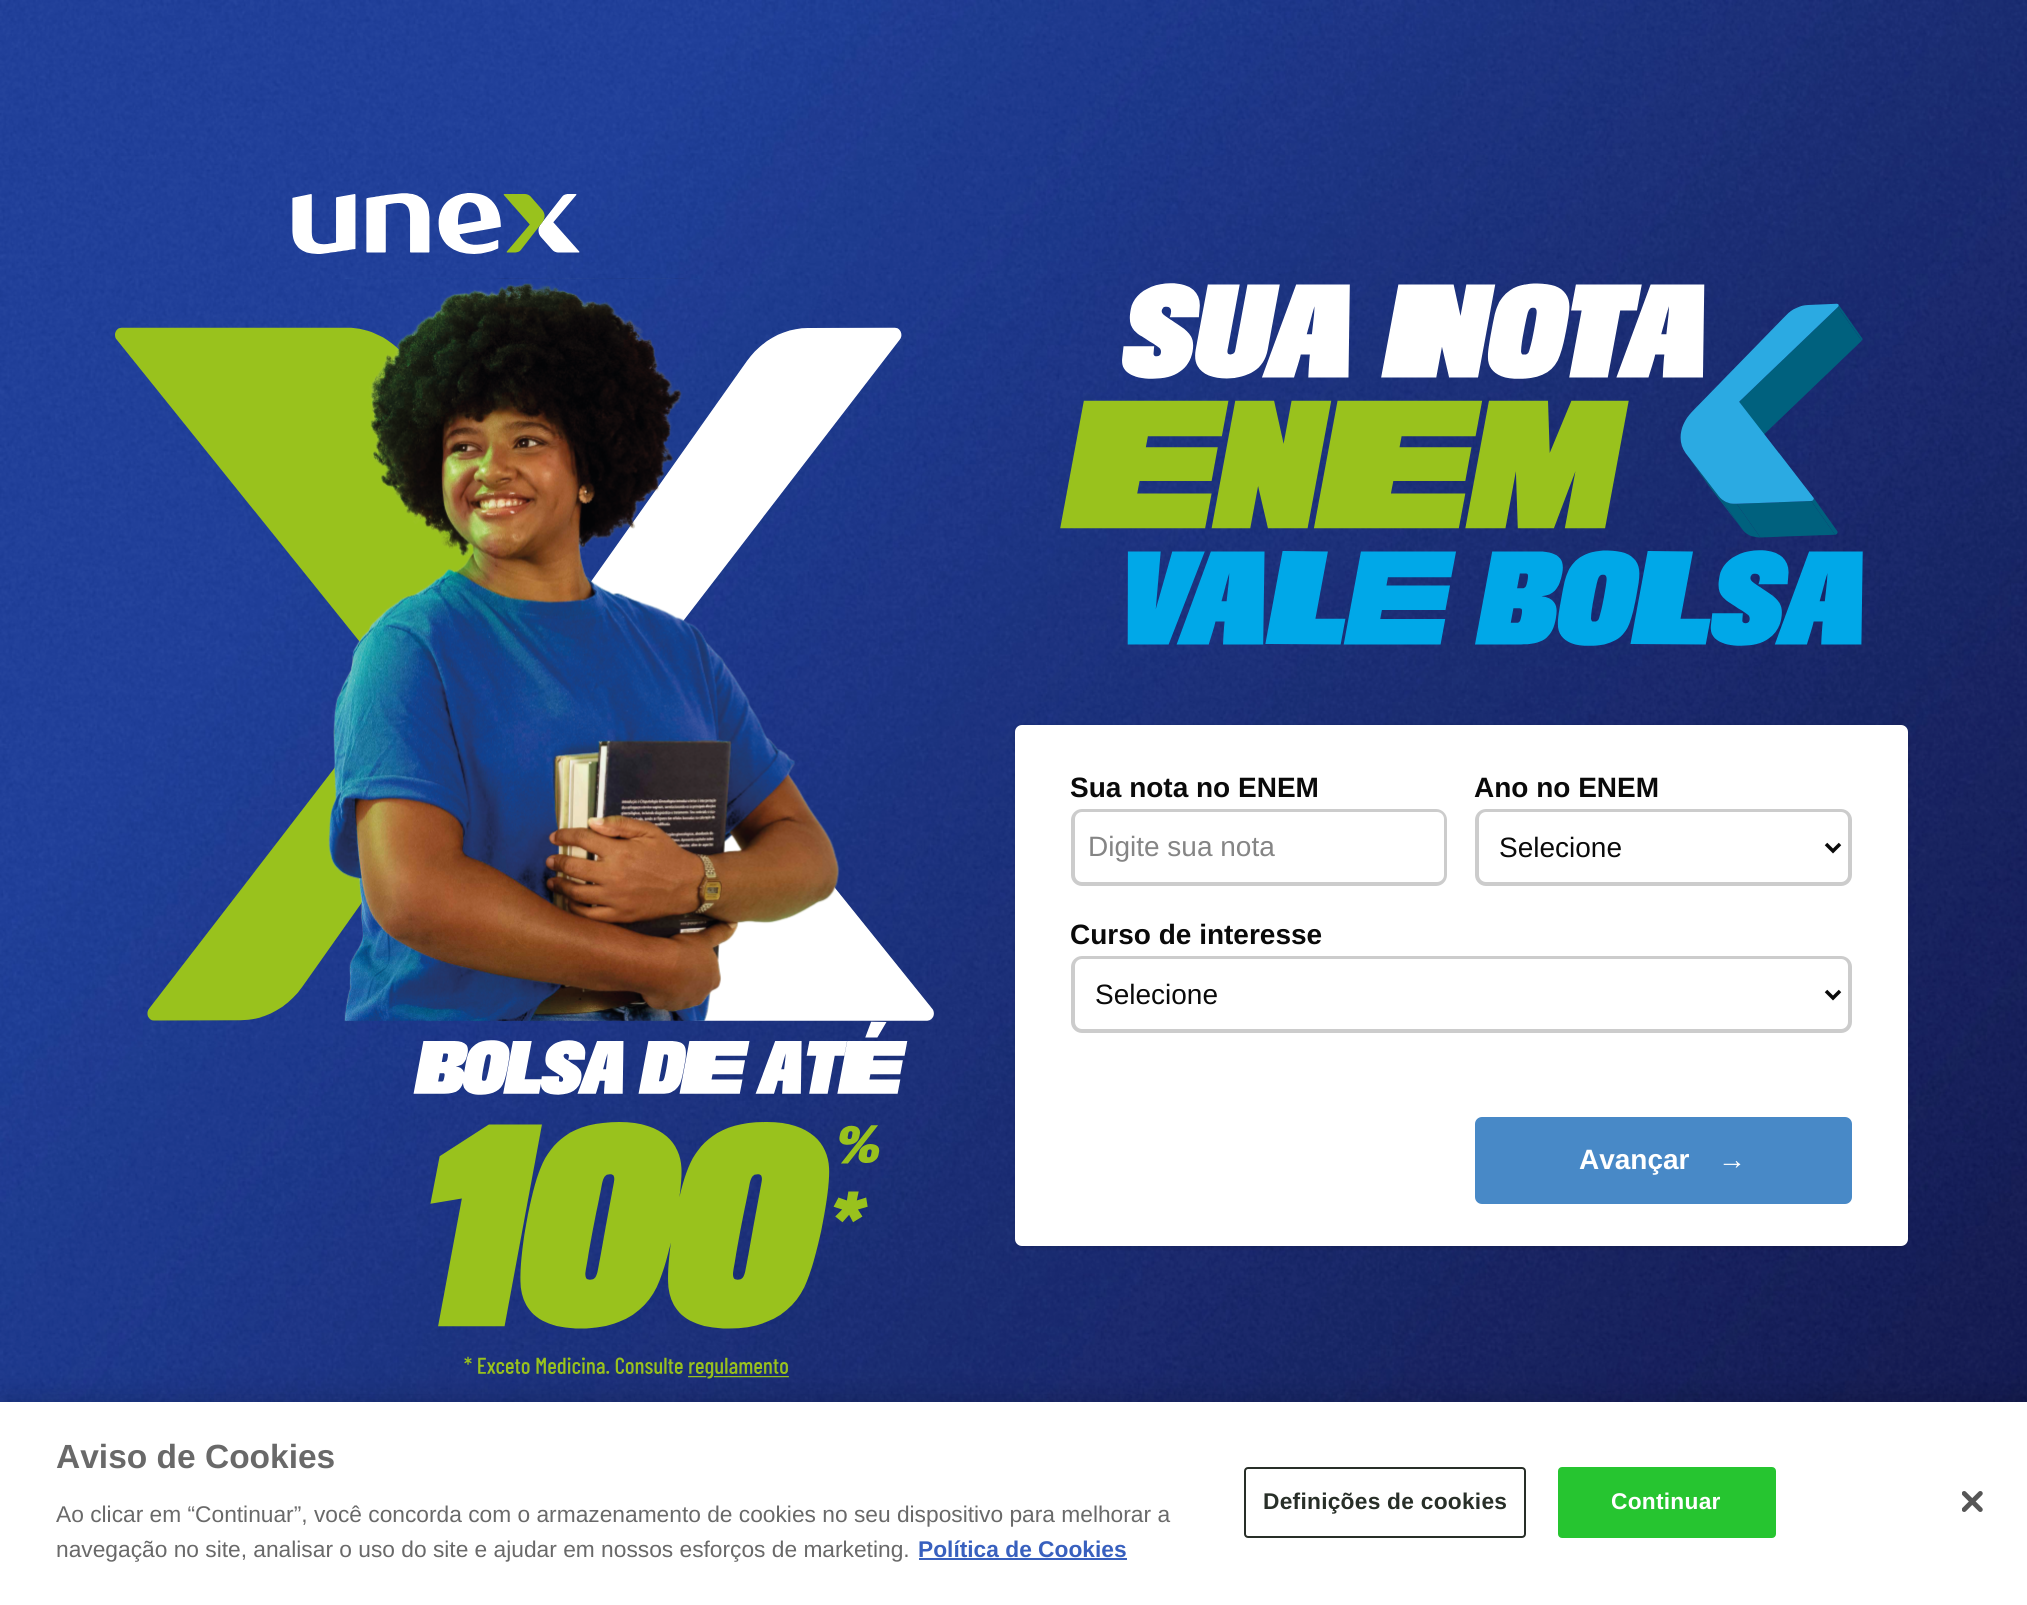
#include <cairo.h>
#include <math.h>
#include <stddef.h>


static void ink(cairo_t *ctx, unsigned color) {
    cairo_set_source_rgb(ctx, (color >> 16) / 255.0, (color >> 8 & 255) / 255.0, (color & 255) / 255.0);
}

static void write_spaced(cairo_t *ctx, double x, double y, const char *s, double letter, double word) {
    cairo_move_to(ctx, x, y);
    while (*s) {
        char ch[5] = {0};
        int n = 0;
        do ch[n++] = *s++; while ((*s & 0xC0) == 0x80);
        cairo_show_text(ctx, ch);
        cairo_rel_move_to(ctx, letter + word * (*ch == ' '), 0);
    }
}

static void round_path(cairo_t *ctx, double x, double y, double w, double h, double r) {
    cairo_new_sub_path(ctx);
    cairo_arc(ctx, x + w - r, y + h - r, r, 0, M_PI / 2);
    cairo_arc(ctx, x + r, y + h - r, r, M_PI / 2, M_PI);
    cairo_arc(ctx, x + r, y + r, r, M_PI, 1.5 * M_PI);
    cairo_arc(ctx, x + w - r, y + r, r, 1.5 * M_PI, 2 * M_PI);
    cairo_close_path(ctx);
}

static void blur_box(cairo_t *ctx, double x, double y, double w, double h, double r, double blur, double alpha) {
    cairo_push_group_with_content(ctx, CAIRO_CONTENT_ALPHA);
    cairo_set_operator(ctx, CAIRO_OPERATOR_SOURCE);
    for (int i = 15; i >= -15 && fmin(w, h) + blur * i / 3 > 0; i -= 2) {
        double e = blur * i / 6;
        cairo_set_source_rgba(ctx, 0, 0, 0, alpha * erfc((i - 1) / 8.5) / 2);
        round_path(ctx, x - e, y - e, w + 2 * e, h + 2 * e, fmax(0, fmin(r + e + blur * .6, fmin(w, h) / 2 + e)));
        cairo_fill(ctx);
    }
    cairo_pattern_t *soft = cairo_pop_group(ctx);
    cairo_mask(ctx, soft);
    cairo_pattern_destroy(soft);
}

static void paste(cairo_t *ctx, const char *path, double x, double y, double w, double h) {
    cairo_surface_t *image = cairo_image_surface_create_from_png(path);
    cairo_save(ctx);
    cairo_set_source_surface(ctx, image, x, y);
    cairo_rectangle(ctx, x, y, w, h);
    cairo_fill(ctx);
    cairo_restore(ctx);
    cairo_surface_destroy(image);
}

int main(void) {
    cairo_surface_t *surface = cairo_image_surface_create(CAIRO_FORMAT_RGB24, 2027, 1605);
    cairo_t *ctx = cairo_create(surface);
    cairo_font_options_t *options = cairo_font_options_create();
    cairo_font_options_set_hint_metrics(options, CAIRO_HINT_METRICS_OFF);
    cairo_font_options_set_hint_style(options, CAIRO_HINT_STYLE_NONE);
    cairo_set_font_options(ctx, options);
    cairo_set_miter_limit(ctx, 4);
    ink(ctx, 0xFFFFFF);
    cairo_paint(ctx);
    paste(ctx, "media/1.png", 0, 0, 2027, 1402);
    paste(ctx, "media/2.png", 115, 193, 819, 1186);
    paste(ctx, "media/3.png", 1060, 283, 803, 363);
    ink(ctx, 0x000000);
    blur_box(ctx, 1017, 728, 889, 518, 5, 2, 0.1);
    blur_box(ctx, 1015, 726, 893, 522, 7, 2.5, 0.1);
    ink(ctx, 0xFFFFFF);
    round_path(ctx, 1015, 725, 893, 521, 7);
    cairo_fill(ctx);
    cairo_select_font_face(ctx, "Liberation Sans", CAIRO_FONT_SLANT_NORMAL, CAIRO_FONT_WEIGHT_BOLD);
    cairo_set_font_size(ctx, 28);
    ink(ctx, 0x0A0A0A);
    cairo_move_to(ctx, 1070, 797);
    cairo_show_text(ctx, "Sua nota no ENEM");
    ink(ctx, 0xCCCCCC);
    round_path(ctx, 1071, 809, 376, 77, 11);
    cairo_fill(ctx);
    ink(ctx, 0xFFFFFF);
    round_path(ctx, 1075, 812, 369, 70, 7);
    cairo_fill(ctx);
    cairo_select_font_face(ctx, "Liberation Sans", CAIRO_FONT_SLANT_NORMAL, CAIRO_FONT_WEIGHT_NORMAL);
    ink(ctx, 0x858585);
    cairo_move_to(ctx, 1088, 856);
    cairo_show_text(ctx, "Digite sua nota");
    cairo_select_font_face(ctx, "Liberation Sans", CAIRO_FONT_SLANT_NORMAL, CAIRO_FONT_WEIGHT_BOLD);
    ink(ctx, 0x0A0A0A);
    cairo_move_to(ctx, 1474, 797);
    cairo_show_text(ctx, "Ano no ENEM");
    ink(ctx, 0xCCCCCC);
    round_path(ctx, 1475, 809, 377, 77, 11);
    cairo_fill(ctx);
    ink(ctx, 0xFFFFFF);
    round_path(ctx, 1479, 812, 369, 70, 7);
    cairo_fill(ctx);
    cairo_new_path(ctx);
    cairo_move_to(ctx, 1826, 844);
    cairo_line_to(ctx, 1833, 851);
    cairo_line_to(ctx, 1840, 844);
    ink(ctx, 0x0A0A0A);
    cairo_set_line_width(ctx, 3.5);
    cairo_stroke(ctx);
    cairo_select_font_face(ctx, "Liberation Sans", CAIRO_FONT_SLANT_NORMAL, CAIRO_FONT_WEIGHT_NORMAL);
    cairo_move_to(ctx, 1499, 857);
    cairo_show_text(ctx, "Selecione");
    cairo_select_font_face(ctx, "Liberation Sans", CAIRO_FONT_SLANT_NORMAL, CAIRO_FONT_WEIGHT_BOLD);
    cairo_move_to(ctx, 1070, 944);
    cairo_show_text(ctx, "Curso de interesse");
    ink(ctx, 0xCCCCCC);
    round_path(ctx, 1071, 956, 781, 77, 11);
    cairo_fill(ctx);
    ink(ctx, 0xFFFFFF);
    round_path(ctx, 1075, 959, 773, 70, 7);
    cairo_fill(ctx);
    cairo_new_path(ctx);
    cairo_move_to(ctx, 1826, 991);
    cairo_line_to(ctx, 1833, 998);
    cairo_line_to(ctx, 1840, 991);
    ink(ctx, 0x0A0A0A);
    cairo_stroke(ctx);
    cairo_select_font_face(ctx, "Liberation Sans", CAIRO_FONT_SLANT_NORMAL, CAIRO_FONT_WEIGHT_NORMAL);
    cairo_move_to(ctx, 1095, 1004);
    cairo_show_text(ctx, "Selecione");
    ink(ctx, 0x4889C7);
    round_path(ctx, 1475, 1117, 377, 87, 7);
    cairo_fill(ctx);
    cairo_select_font_face(ctx, "Liberation Sans", CAIRO_FONT_SLANT_NORMAL, CAIRO_FONT_WEIGHT_BOLD);
    ink(ctx, 0xFFFFFF);
    cairo_move_to(ctx, 1579, 1169);
    cairo_show_text(ctx, "Avançar");
    cairo_move_to(ctx, 1718, 1169);
    cairo_show_text(ctx, "→");
    ink(ctx, 0x000000);
    blur_box(ctx, 0, 1402, 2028, 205, 0, 16, 0.2);
    ink(ctx, 0xFFFFFF);
    cairo_rectangle(ctx, 0, 1402, 2027, 203);
    cairo_fill(ctx);
    cairo_set_font_size(ctx, 33.5);
    ink(ctx, 0x696969);
    cairo_move_to(ctx, 56, 1468);
    cairo_show_text(ctx, "Aviso de Cookies");
    cairo_select_font_face(ctx, "Liberation Sans", CAIRO_FONT_SLANT_NORMAL, CAIRO_FONT_WEIGHT_NORMAL);
    cairo_set_font_size(ctx, 22.75);
    cairo_move_to(ctx, 56, 1522);
    cairo_show_text(ctx, "Ao clicar em “Continuar”, você concorda com o armazenamento de cookies no seu dispositivo para melhorar a");
    cairo_move_to(ctx, 56, 1557);
    cairo_show_text(ctx, "navegação no site, analisar o uso do site e ajudar em nossos esforços de marketing.");
    cairo_select_font_face(ctx, "Liberation Sans", CAIRO_FONT_SLANT_NORMAL, CAIRO_FONT_WEIGHT_BOLD);
    ink(ctx, 0x3860BE);
    cairo_move_to(ctx, 918, 1557);
    cairo_show_text(ctx, "Política de Cookies");
    cairo_rectangle(ctx, 919, 1558, 208, 2);
    cairo_fill(ctx);
    round_path(ctx, 1245, 1468, 280, 69, 3);
    ink(ctx, 0x282F28);
    cairo_set_line_width(ctx, 2);
    cairo_stroke(ctx);
    write_spaced(ctx, 1263, 1509, "Definições de cookies", 0.25, 0);
    ink(ctx, 0x26C530);
    round_path(ctx, 1559, 1468, 216, 69, 3);
    cairo_fill_preserve(ctx);
    cairo_stroke(ctx);
    ink(ctx, 0xFFFFFF);
    write_spaced(ctx, 1611, 1509, "Continuar", 0.25, 0);
    paste(ctx, "media/4.png", 1962, 1491, 21, 21);
    cairo_surface_write_to_png(surface, "image.png");
    cairo_font_options_destroy(options);
    cairo_destroy(ctx);
    cairo_surface_destroy(surface);
    return 0;
}
